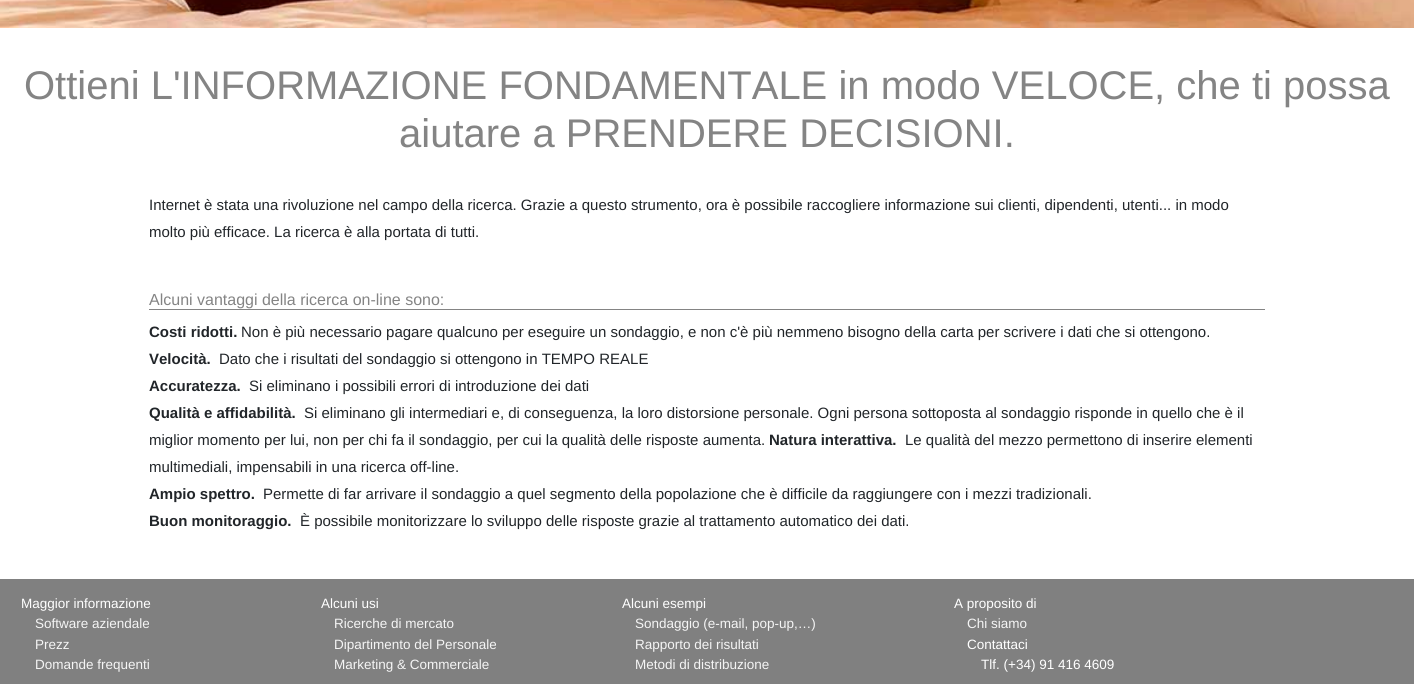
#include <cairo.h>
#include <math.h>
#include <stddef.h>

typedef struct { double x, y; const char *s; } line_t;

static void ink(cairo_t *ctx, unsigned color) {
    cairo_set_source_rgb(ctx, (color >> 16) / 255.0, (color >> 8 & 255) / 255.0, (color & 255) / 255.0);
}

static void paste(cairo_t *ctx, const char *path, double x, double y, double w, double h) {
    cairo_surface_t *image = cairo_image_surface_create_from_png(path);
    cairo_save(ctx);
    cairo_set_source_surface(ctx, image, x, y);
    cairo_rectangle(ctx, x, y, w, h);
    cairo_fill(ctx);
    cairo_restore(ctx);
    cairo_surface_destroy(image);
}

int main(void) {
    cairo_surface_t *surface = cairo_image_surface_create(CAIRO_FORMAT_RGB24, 1414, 684);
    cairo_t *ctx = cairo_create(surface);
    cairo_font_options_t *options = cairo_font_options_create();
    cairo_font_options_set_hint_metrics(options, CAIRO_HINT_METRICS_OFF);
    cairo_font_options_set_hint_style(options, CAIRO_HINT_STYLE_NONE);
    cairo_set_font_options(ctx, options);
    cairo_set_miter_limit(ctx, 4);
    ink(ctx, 0xFFFFFF);
    cairo_paint(ctx);
    paste(ctx, "media/1.png", 0, 0, 1414, 28);
    cairo_select_font_face(ctx, "Liberation Sans", CAIRO_FONT_SLANT_NORMAL, CAIRO_FONT_WEIGHT_NORMAL);
    cairo_set_font_size(ctx, 40);
    ink(ctx, 0x848484);
    cairo_move_to(ctx, 24, 99);
    cairo_show_text(ctx, "Ottieni L'INFORMAZIONE FONDAMENTALE in modo VELOCE, che ti possa");
    cairo_move_to(ctx, 399, 147);
    cairo_show_text(ctx, "aiutare a PRENDERE DECISIONI.");
    cairo_set_font_size(ctx, 15);
    ink(ctx, 0x212529);
    cairo_move_to(ctx, 149, 210);
    cairo_show_text(ctx, "Internet è stata una rivoluzione nel campo della ricerca. Grazie a questo strumento, ora è possibile raccogliere informazione sui clienti, dipendenti, utenti... in modo");
    cairo_move_to(ctx, 149, 237);
    cairo_show_text(ctx, "molto più efficace. La ricerca è alla portata di tutti.");
    ink(ctx, 0x848484);
    cairo_rectangle(ctx, 149, 309, 1116, 1);
    cairo_fill(ctx);
    cairo_set_font_size(ctx, 16);
    cairo_move_to(ctx, 149, 305);
    cairo_show_text(ctx, "Alcuni vantaggi della ricerca on-line sono:");
    cairo_select_font_face(ctx, "Liberation Sans", CAIRO_FONT_SLANT_NORMAL, CAIRO_FONT_WEIGHT_BOLD);
    cairo_set_font_size(ctx, 15);
    ink(ctx, 0x212529);
    cairo_move_to(ctx, 149, 337);
    cairo_show_text(ctx, "Costi ridotti.");
    cairo_select_font_face(ctx, "Liberation Sans", CAIRO_FONT_SLANT_NORMAL, CAIRO_FONT_WEIGHT_NORMAL);
    cairo_move_to(ctx, 241, 337);
    cairo_show_text(ctx, "Non è più necessario pagare qualcuno per eseguire un sondaggio, e non c'è più nemmeno bisogno della carta per scrivere i dati che si ottengono.");
    cairo_select_font_face(ctx, "Liberation Sans", CAIRO_FONT_SLANT_NORMAL, CAIRO_FONT_WEIGHT_BOLD);
    cairo_move_to(ctx, 149, 364);
    cairo_show_text(ctx, "Velocità.");
    cairo_select_font_face(ctx, "Liberation Sans", CAIRO_FONT_SLANT_NORMAL, CAIRO_FONT_WEIGHT_NORMAL);
    cairo_move_to(ctx, 219, 364);
    cairo_show_text(ctx, "Dato che i risultati del sondaggio si ottengono in TEMPO REALE");
    cairo_select_font_face(ctx, "Liberation Sans", CAIRO_FONT_SLANT_NORMAL, CAIRO_FONT_WEIGHT_BOLD);
    cairo_move_to(ctx, 149, 391);
    cairo_show_text(ctx, "Accuratezza.");
    cairo_select_font_face(ctx, "Liberation Sans", CAIRO_FONT_SLANT_NORMAL, CAIRO_FONT_WEIGHT_NORMAL);
    cairo_move_to(ctx, 249, 391);
    cairo_show_text(ctx, "Si eliminano i possibili errori di introduzione dei dati");
    cairo_select_font_face(ctx, "Liberation Sans", CAIRO_FONT_SLANT_NORMAL, CAIRO_FONT_WEIGHT_BOLD);
    cairo_move_to(ctx, 149, 418);
    cairo_show_text(ctx, "Qualità e affidabilità.");
    cairo_select_font_face(ctx, "Liberation Sans", CAIRO_FONT_SLANT_NORMAL, CAIRO_FONT_WEIGHT_NORMAL);
    cairo_move_to(ctx, 304, 418);
    cairo_show_text(ctx, "Si eliminano gli intermediari e, di conseguenza, la loro distorsione personale. Ogni persona sottoposta al sondaggio risponde in quello che è il");
    cairo_move_to(ctx, 149, 445);
    cairo_show_text(ctx, "miglior momento per lui, non per chi fa il sondaggio, per cui la qualità delle risposte aumenta.");
    cairo_select_font_face(ctx, "Liberation Sans", CAIRO_FONT_SLANT_NORMAL, CAIRO_FONT_WEIGHT_BOLD);
    cairo_move_to(ctx, 769, 445);
    cairo_show_text(ctx, "Natura interattiva.");
    cairo_select_font_face(ctx, "Liberation Sans", CAIRO_FONT_SLANT_NORMAL, CAIRO_FONT_WEIGHT_NORMAL);
    cairo_move_to(ctx, 905, 445);
    cairo_show_text(ctx, "Le qualità del mezzo permettono di inserire elementi");
    cairo_move_to(ctx, 149, 472);
    cairo_show_text(ctx, "multimediali, impensabili in una ricerca off-line.");
    cairo_select_font_face(ctx, "Liberation Sans", CAIRO_FONT_SLANT_NORMAL, CAIRO_FONT_WEIGHT_BOLD);
    cairo_move_to(ctx, 149, 499);
    cairo_show_text(ctx, "Ampio spettro.");
    cairo_select_font_face(ctx, "Liberation Sans", CAIRO_FONT_SLANT_NORMAL, CAIRO_FONT_WEIGHT_NORMAL);
    cairo_move_to(ctx, 263, 499);
    cairo_show_text(ctx, "Permette di far arrivare il sondaggio a quel segmento della popolazione che è difficile da raggiungere con i mezzi tradizionali.");
    cairo_select_font_face(ctx, "Liberation Sans", CAIRO_FONT_SLANT_NORMAL, CAIRO_FONT_WEIGHT_BOLD);
    cairo_move_to(ctx, 149, 526);
    cairo_show_text(ctx, "Buon monitoraggio.");
    cairo_select_font_face(ctx, "Liberation Sans", CAIRO_FONT_SLANT_NORMAL, CAIRO_FONT_WEIGHT_NORMAL);
    cairo_move_to(ctx, 300, 526);
    cairo_show_text(ctx, "È possibile monitorizzare lo sviluppo delle risposte grazie al trattamento automatico dei dati.");
    ink(ctx, 0x808080);
    cairo_rectangle(ctx, 0, 579, 1414, 105);
    cairo_fill(ctx);
    cairo_set_font_size(ctx, 13.5);
    ink(ctx, 0xFFFFFF);
    cairo_move_to(ctx, 21, 608);
    cairo_show_text(ctx, "Maggior informazione");
    ink(ctx, 0xF5F5F5);
    {
        static const line_t items[] = {
            {35, 628, "Software aziendale"},
            {35, 649, "Prezz"},
            {35, 669, "Domande frequenti"},
        };
        for (size_t i = 0; i < sizeof items / sizeof *items; i++) {
            cairo_move_to(ctx, items[i].x, items[i].y);
            cairo_show_text(ctx, items[i].s);
        }
    }
    ink(ctx, 0xFFFFFF);
    cairo_move_to(ctx, 321, 608);
    cairo_show_text(ctx, "Alcuni usi");
    ink(ctx, 0xF5F5F5);
    {
        static const line_t items[] = {
            {334, 628, "Ricerche di mercato"},
            {334, 649, "Dipartimento del Personale"},
            {334, 669, "Marketing & Commerciale"},
        };
        for (size_t i = 0; i < sizeof items / sizeof *items; i++) {
            cairo_move_to(ctx, items[i].x, items[i].y);
            cairo_show_text(ctx, items[i].s);
        }
    }
    ink(ctx, 0xFFFFFF);
    cairo_move_to(ctx, 622, 608);
    cairo_show_text(ctx, "Alcuni esempi");
    ink(ctx, 0xF5F5F5);
    {
        static const line_t items[] = {
            {635, 628, "Sondaggio (e-mail, pop-up,…)"},
            {635, 649, "Rapporto dei risultati"},
            {635, 669, "Metodi di distribuzione"},
        };
        for (size_t i = 0; i < sizeof items / sizeof *items; i++) {
            cairo_move_to(ctx, items[i].x, items[i].y);
            cairo_show_text(ctx, items[i].s);
        }
    }
    ink(ctx, 0xFFFFFF);
    cairo_move_to(ctx, 954, 608);
    cairo_show_text(ctx, "A proposito di");
    ink(ctx, 0xF5F5F5);
    cairo_move_to(ctx, 967, 628);
    cairo_show_text(ctx, "Chi siamo");
    ink(ctx, 0xFFFFFF);
    cairo_move_to(ctx, 967, 649);
    cairo_show_text(ctx, "Contattaci");
    cairo_move_to(ctx, 981, 669);
    cairo_show_text(ctx, "Tlf. (+34) 91 416 4609");
    cairo_surface_write_to_png(surface, "image.png");
    cairo_font_options_destroy(options);
    cairo_destroy(ctx);
    cairo_surface_destroy(surface);
    return 0;
}
